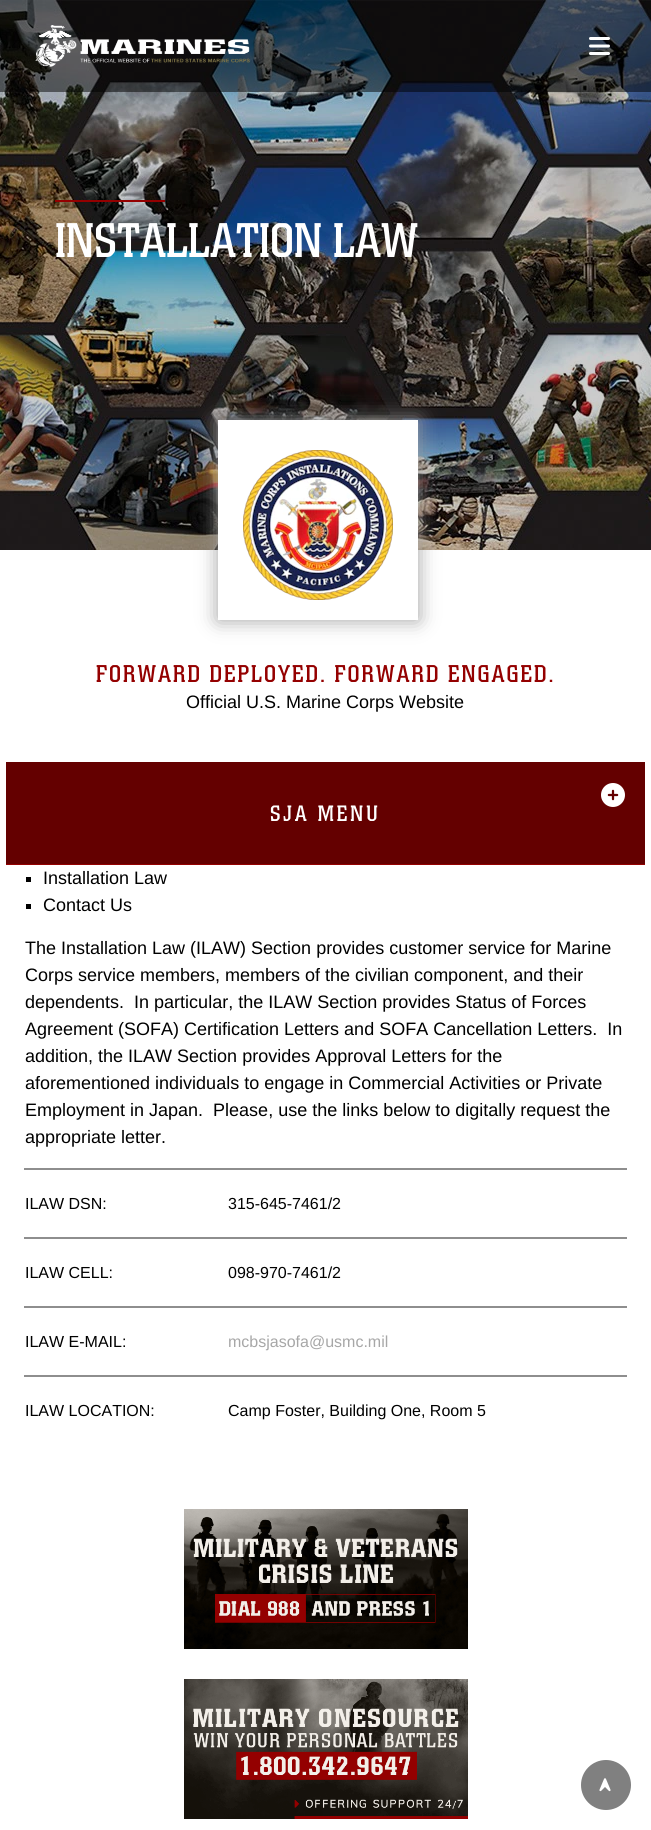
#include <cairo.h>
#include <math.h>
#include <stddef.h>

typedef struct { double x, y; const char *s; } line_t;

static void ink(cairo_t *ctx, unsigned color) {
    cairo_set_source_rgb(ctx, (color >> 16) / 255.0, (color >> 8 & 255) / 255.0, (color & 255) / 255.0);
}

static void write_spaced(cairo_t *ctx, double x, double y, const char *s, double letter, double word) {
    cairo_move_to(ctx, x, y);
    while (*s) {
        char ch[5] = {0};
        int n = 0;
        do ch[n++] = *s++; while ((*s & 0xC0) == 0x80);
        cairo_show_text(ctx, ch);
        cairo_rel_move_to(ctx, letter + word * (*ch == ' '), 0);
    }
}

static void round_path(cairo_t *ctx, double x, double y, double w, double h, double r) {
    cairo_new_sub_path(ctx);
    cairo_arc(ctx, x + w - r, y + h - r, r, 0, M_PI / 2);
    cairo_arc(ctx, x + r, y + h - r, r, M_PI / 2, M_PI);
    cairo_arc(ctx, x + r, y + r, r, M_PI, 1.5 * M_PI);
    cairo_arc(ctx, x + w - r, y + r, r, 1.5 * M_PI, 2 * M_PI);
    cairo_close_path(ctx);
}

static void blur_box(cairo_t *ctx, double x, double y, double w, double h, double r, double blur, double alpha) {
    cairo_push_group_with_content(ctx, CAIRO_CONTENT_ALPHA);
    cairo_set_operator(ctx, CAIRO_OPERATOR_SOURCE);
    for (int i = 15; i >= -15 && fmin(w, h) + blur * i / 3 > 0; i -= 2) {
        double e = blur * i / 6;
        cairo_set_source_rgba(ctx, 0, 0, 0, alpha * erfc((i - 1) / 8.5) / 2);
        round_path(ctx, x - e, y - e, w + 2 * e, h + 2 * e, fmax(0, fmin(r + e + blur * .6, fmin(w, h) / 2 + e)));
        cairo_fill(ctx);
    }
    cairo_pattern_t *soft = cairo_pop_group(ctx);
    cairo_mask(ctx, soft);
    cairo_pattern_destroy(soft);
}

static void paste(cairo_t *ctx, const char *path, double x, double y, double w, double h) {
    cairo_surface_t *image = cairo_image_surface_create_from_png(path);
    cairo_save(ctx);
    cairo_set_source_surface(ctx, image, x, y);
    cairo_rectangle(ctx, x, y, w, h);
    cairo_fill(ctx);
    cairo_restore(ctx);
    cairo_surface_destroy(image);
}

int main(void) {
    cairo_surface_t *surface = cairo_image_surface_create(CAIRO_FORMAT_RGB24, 651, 1830);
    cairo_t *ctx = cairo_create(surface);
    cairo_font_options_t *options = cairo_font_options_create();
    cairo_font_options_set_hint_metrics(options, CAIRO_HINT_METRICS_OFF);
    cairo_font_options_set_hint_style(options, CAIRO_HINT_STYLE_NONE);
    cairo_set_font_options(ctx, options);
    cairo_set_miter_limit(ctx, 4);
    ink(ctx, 0xFFFFFF);
    cairo_paint(ctx);
    paste(ctx, "media/3.png", 0, 0, 651, 550);
    cairo_set_source_rgba(ctx, 0, 0, 0, 0.5);
    cairo_rectangle(ctx, 0, 0, 651, 92);
    cairo_fill(ctx);
    paste(ctx, "media/1.png", 35, 25, 215, 42);
    paste(ctx, "media/2.png", 589, 37, 21, 18);
    ink(ctx, 0x940000);
    cairo_rectangle(ctx, 55, 200, 110, 2);
    cairo_fill(ctx);
    cairo_select_font_face(ctx, "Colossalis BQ", CAIRO_FONT_SLANT_NORMAL, CAIRO_FONT_WEIGHT_NORMAL);
    cairo_set_font_size(ctx, 48);
    ink(ctx, 0xFFFFFF);
    cairo_move_to(ctx, 55, 257);
    cairo_show_text(ctx, "INSTALLATION LAW");
    ink(ctx, 0xA1A1A1);
    blur_box(ctx, 218, 420, 200, 200, 0, 10, 1);
    ink(ctx, 0xFFFFFF);
    cairo_rectangle(ctx, 218, 420, 200, 200);
    cairo_fill(ctx);
    paste(ctx, "media/4.png", 243, 450, 150, 150);
    cairo_set_font_size(ctx, 24);
    ink(ctx, 0x940000);
    write_spaced(ctx, 96, 682, "FORWARD DEPLOYED. FORWARD ENGAGED.", 2, 0);
    cairo_select_font_face(ctx, "Liberation Sans", CAIRO_FONT_SLANT_NORMAL, CAIRO_FONT_WEIGHT_NORMAL);
    cairo_set_font_size(ctx, 18);
    ink(ctx, 0x000000);
    cairo_move_to(ctx, 186, 708);
    cairo_show_text(ctx, "Official U.S. Marine Corps Website");
    ink(ctx, 0x640000);
    cairo_rectangle(ctx, 6, 762, 639, 102);
    cairo_fill(ctx);
    ink(ctx, 0x940000);
    cairo_rectangle(ctx, 6, 864, 639, 1);
    cairo_fill(ctx);
    paste(ctx, "media/5.png", 601, 783, 24, 24);
    cairo_select_font_face(ctx, "Colossalis BQ", CAIRO_FONT_SLANT_NORMAL, CAIRO_FONT_WEIGHT_NORMAL);
    cairo_set_font_size(ctx, 22);
    ink(ctx, 0xFFFFFF);
    write_spaced(ctx, 270, 821, "SJA MENU", 3, 0);
    ink(ctx, 0x000000);
    cairo_rectangle(ctx, 26, 877, 5, 5);
    cairo_fill(ctx);
    cairo_select_font_face(ctx, "Liberation Sans", CAIRO_FONT_SLANT_NORMAL, CAIRO_FONT_WEIGHT_NORMAL);
    cairo_set_font_size(ctx, 18);
    cairo_move_to(ctx, 43, 884);
    cairo_show_text(ctx, "Installation Law");
    cairo_rectangle(ctx, 26, 904, 5, 5);
    cairo_fill(ctx);
    {
        static const line_t items[] = {
            {43, 911, "Contact Us"},
            {25, 954, "The Installation Law (ILAW) Section provides customer service for Marine"},
            {25, 981, "Corps service members, members of the civilian component, and their"},
            {25, 1008, "dependents.  In particular, the ILAW Section provides Status of Forces"},
            {25, 1035, "Agreement (SOFA) Certification Letters and SOFA Cancellation Letters.  In"},
            {25, 1062, "addition, the ILAW Section provides Approval Letters for the"},
            {25, 1089, "aforementioned individuals to engage in Commercial Activities or Private"},
            {25, 1116, "Employment in Japan.  Please, use the links below to digitally request the"},
            {25, 1143, "appropriate letter."},
        };
        for (size_t i = 0; i < sizeof items / sizeof *items; i++) {
            cairo_move_to(ctx, items[i].x, items[i].y);
            cairo_show_text(ctx, items[i].s);
        }
    }
    cairo_set_font_size(ctx, 16);
    cairo_move_to(ctx, 25, 1209);
    cairo_show_text(ctx, "ILAW DSN:");
    ink(ctx, 0x8E8E8E);
    cairo_rectangle(ctx, 24, 1168, 603, 2);
    cairo_fill(ctx);
    ink(ctx, 0x000000);
    cairo_move_to(ctx, 228, 1209);
    cairo_show_text(ctx, "315-645-7461/2");
    cairo_move_to(ctx, 25, 1278);
    cairo_show_text(ctx, "ILAW CELL:");
    ink(ctx, 0x8E8E8E);
    cairo_rectangle(ctx, 24, 1237, 603, 2);
    cairo_fill(ctx);
    ink(ctx, 0x000000);
    cairo_move_to(ctx, 228, 1278);
    cairo_show_text(ctx, "098-970-7461/2");
    cairo_move_to(ctx, 25, 1347);
    cairo_show_text(ctx, "ILAW E-MAIL:");
    ink(ctx, 0x8E8E8E);
    cairo_rectangle(ctx, 24, 1306, 603, 2);
    cairo_fill(ctx);
    ink(ctx, 0xA7A7A7);
    cairo_move_to(ctx, 228, 1347);
    cairo_show_text(ctx, "mcbsjasofa@usmc.mil");
    ink(ctx, 0x000000);
    cairo_move_to(ctx, 25, 1416);
    cairo_show_text(ctx, "ILAW LOCATION:");
    ink(ctx, 0x8E8E8E);
    cairo_rectangle(ctx, 24, 1375, 603, 2);
    cairo_fill(ctx);
    ink(ctx, 0x000000);
    cairo_move_to(ctx, 228, 1416);
    cairo_show_text(ctx, "Camp Foster, Building One, Room 5");
    paste(ctx, "media/6.png", 184, 1509, 284, 140);
    paste(ctx, "media/7.png", 184, 1679, 284, 140);
    ink(ctx, 0x808080);
    cairo_arc(ctx, 606, 1785, 25, 0, 2 * M_PI);
    cairo_fill(ctx);
    paste(ctx, "media/8.png", 599, 1778, 12, 14);
    cairo_surface_write_to_png(surface, "image.png");
    cairo_font_options_destroy(options);
    cairo_destroy(ctx);
    cairo_surface_destroy(surface);
    return 0;
}
